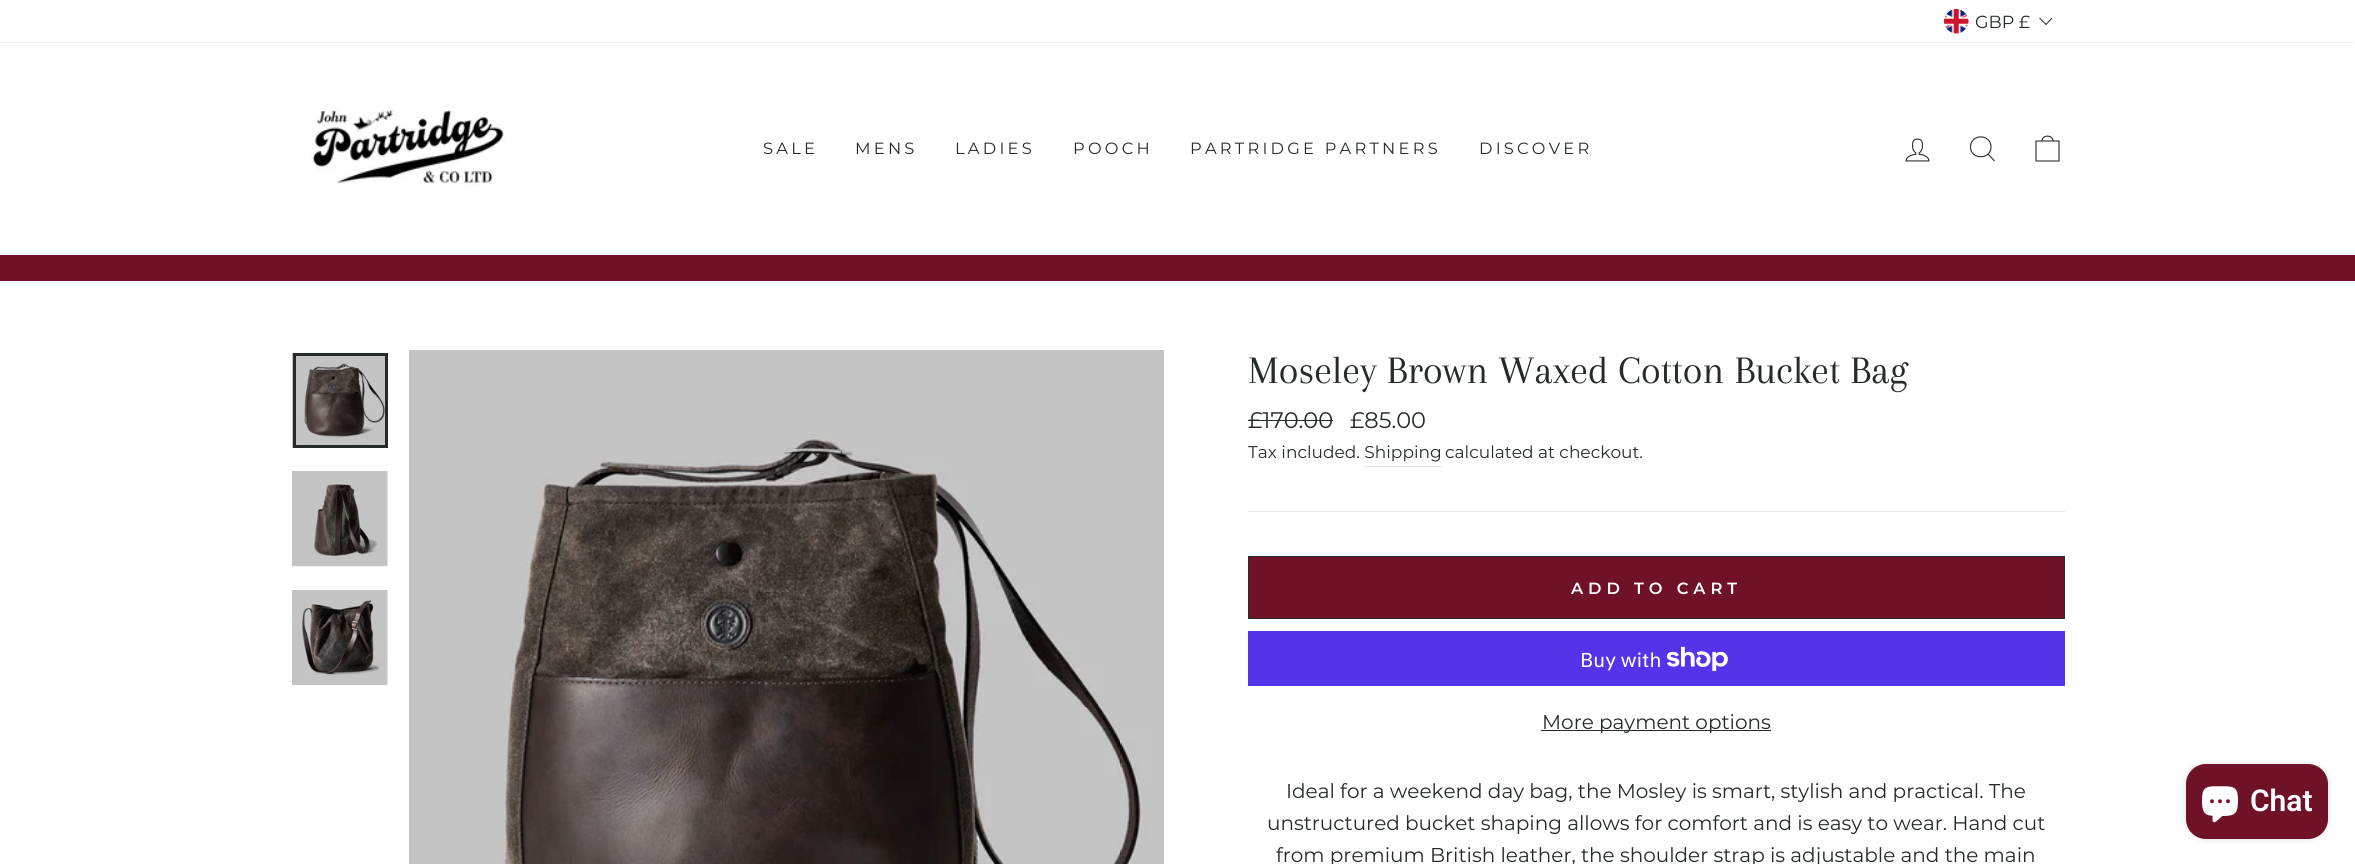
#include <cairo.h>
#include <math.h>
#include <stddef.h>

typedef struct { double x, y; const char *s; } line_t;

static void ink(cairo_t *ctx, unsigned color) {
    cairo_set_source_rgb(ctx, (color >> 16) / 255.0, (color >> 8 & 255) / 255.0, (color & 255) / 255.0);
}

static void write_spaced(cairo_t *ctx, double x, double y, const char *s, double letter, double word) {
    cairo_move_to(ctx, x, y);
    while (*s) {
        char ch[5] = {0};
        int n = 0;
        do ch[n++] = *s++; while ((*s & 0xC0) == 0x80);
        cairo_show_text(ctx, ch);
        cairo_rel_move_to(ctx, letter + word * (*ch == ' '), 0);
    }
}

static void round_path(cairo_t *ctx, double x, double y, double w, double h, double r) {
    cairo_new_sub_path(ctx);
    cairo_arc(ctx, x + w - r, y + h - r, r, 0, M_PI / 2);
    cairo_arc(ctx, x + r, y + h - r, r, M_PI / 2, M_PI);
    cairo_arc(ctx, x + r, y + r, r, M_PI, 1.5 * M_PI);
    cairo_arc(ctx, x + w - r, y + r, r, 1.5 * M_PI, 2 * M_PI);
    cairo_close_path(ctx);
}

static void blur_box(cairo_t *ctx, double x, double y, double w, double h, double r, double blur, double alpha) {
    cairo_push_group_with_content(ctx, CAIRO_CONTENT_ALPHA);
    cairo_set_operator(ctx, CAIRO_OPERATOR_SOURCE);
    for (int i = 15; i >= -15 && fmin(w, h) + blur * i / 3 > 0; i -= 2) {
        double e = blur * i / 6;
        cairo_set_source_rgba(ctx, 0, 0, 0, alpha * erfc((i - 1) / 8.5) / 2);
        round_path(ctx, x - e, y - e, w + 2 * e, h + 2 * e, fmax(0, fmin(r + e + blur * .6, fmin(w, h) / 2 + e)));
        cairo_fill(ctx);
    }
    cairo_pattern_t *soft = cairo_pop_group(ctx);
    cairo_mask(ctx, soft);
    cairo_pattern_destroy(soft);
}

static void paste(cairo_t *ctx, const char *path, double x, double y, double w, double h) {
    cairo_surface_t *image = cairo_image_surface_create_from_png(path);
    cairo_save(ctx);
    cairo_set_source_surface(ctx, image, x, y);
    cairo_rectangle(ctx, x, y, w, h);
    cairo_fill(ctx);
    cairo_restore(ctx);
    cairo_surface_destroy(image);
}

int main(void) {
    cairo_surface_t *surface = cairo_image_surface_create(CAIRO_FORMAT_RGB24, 2355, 864);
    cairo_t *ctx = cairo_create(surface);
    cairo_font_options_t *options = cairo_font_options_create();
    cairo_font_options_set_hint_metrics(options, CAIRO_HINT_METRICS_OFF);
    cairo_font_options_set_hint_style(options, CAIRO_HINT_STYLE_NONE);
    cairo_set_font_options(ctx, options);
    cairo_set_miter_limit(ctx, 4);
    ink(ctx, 0xFFFFFF);
    cairo_paint(ctx);
    paste(ctx, "media/1.png", 1943, 8, 26, 26);
    cairo_select_font_face(ctx, "Montserrat", CAIRO_FONT_SLANT_NORMAL, CAIRO_FONT_WEIGHT_NORMAL);
    cairo_set_font_size(ctx, 17.5);
    ink(ctx, 0x252A2B);
    cairo_move_to(ctx, 1975, 28);
    cairo_show_text(ctx, "GBP £");
    cairo_new_path(ctx);
    cairo_move_to(ctx, 2039.5, 18);
    cairo_line_to(ctx, 2046, 24.5);
    cairo_line_to(ctx, 2052, 18);
    cairo_set_line_width(ctx, 1);
    cairo_stroke(ctx);
    ink(ctx, 0x6F1127);
    cairo_rectangle(ctx, 0, 255, 2355, 26);
    cairo_fill(ctx);
    ink(ctx, 0x000000);
    blur_box(ctx, 0, 43, 2355, 212, 0, 0.5, 0.2);
    ink(ctx, 0xFFFFFF);
    cairo_rectangle(ctx, 0, 43, 2355, 212);
    cairo_fill(ctx);
    paste(ctx, "media/2.png", 310, 110, 195, 75);
    cairo_set_font_size(ctx, 16.25);
    ink(ctx, 0x252A2B);
    {
        static const line_t items[] = {
            {763, 154, "SALE"},
            {855, 154, "MENS"},
            {955, 154, "LADIES"},
            {1073, 154, "POOCH"},
            {1190, 154, "PARTRIDGE PARTNERS"},
            {1479, 154, "DISCOVER"},
        };
        for (size_t i = 0; i < sizeof items / sizeof *items; i++) {
            write_spaced(ctx, items[i].x, items[i].y, items[i].s, 3.25, 0);
        }
    }
    paste(ctx, "media/3.png", 1905, 138, 25, 24);
    cairo_new_path(ctx);
    cairo_move_to(ctx, 1991, 147);
    cairo_curve_to(ctx, 1991, 160, 1970.5, 160, 1970.5, 147);
    cairo_curve_to(ctx, 1970.5, 133.5, 1991, 133.5, 1991, 147);
    cairo_close_path(ctx);
    cairo_move_to(ctx, 1994.5, 161);
    cairo_line_to(ctx, 1988, 154);
    cairo_set_line_width(ctx, 1.1);
    cairo_stroke(ctx);
    cairo_new_path(ctx);
    cairo_move_to(ctx, 2036, 141);
    cairo_line_to(ctx, 2059, 141);
    cairo_line_to(ctx, 2059, 161);
    cairo_line_to(ctx, 2036, 161);
    cairo_close_path(ctx);
    cairo_move_to(ctx, 2042, 141);
    cairo_curve_to(ctx, 2042, 134.5, 2053, 134.5, 2053, 141);
    cairo_stroke(ctx);
    paste(ctx, "media/4.png", 292, 353, 93, 95);
    cairo_rectangle(ctx, 294.5, 354.5, 92, 92);
    cairo_set_line_width(ctx, 3);
    cairo_stroke(ctx);
    paste(ctx, "media/5.png", 292, 471, 96, 96);
    paste(ctx, "media/6.png", 292, 590, 96, 95);
    paste(ctx, "media/7.png", 409, 350, 755, 514);
    cairo_select_font_face(ctx, "Arapey", CAIRO_FONT_SLANT_NORMAL, CAIRO_FONT_WEIGHT_NORMAL);
    cairo_set_font_size(ctx, 40.4);
    cairo_move_to(ctx, 1248, 383);
    cairo_show_text(ctx, "Moseley Brown Waxed Cotton Bucket Bag");
    cairo_select_font_face(ctx, "Montserrat", CAIRO_FONT_SLANT_NORMAL, CAIRO_FONT_WEIGHT_NORMAL);
    cairo_set_font_size(ctx, 22.5);
    cairo_move_to(ctx, 1248, 428);
    cairo_show_text(ctx, "£170.00");
    cairo_rectangle(ctx, 1248, 420, 85, 1);
    cairo_fill(ctx);
    cairo_move_to(ctx, 1350, 428);
    cairo_show_text(ctx, "£85.00");
    cairo_set_font_size(ctx, 17);
    cairo_move_to(ctx, 1248, 458);
    cairo_show_text(ctx, "Tax included. Shipping");
    cairo_move_to(ctx, 1445, 458);
    cairo_show_text(ctx, "calculated at checkout.");
    ink(ctx, 0xDEDFDF);
    cairo_rectangle(ctx, 1364, 466, 77, 1);
    cairo_fill(ctx);
    ink(ctx, 0xE8E8E1);
    cairo_rectangle(ctx, 1248, 511, 817, 1);
    cairo_fill(ctx);
    ink(ctx, 0x6F1127);
    cairo_rectangle(ctx, 1248.5, 556.5, 816, 62);
    cairo_fill_preserve(ctx);
    ink(ctx, 0x252A2B);
    cairo_set_line_width(ctx, 1);
    cairo_stroke(ctx);
    cairo_select_font_face(ctx, "Montserrat SemiBold", CAIRO_FONT_SLANT_NORMAL, CAIRO_FONT_WEIGHT_NORMAL);
    cairo_set_font_size(ctx, 16.25);
    ink(ctx, 0xFFFFFF);
    write_spaced(ctx, 1571, 594, "ADD TO CART", 4.9, 0);
    ink(ctx, 0x5433EB);
    cairo_rectangle(ctx, 1248, 631, 817, 55);
    cairo_fill(ctx);
    cairo_select_font_face(ctx, "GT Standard", CAIRO_FONT_SLANT_NORMAL, CAIRO_FONT_WEIGHT_NORMAL);
    cairo_set_font_size(ctx, 20);
    ink(ctx, 0xFFFFFF);
    cairo_move_to(ctx, 1580, 667);
    cairo_show_text(ctx, "Buy with");
    paste(ctx, "media/8.png", 1666, 646, 62, 25);
    ink(ctx, 0x252A2B);
    cairo_rectangle(ctx, 1541, 730, 230, 1);
    cairo_fill(ctx);
    cairo_select_font_face(ctx, "Montserrat", CAIRO_FONT_SLANT_NORMAL, CAIRO_FONT_WEIGHT_NORMAL);
    {
        static const line_t items[] = {
            {1542, 729, "More payment options"},
            {1286, 798, "Ideal for a weekend day bag, the Mosley is smart, stylish and practical. The"},
            {1267, 830, "unstructured bucket shaping allows for comfort and is easy to wear. Hand cut"},
            {1276, 862, "from premium British leather, the shoulder strap is adjustable and the main"},
        };
        for (size_t i = 0; i < sizeof items / sizeof *items; i++) {
            cairo_move_to(ctx, items[i].x, items[i].y);
            cairo_show_text(ctx, items[i].s);
        }
    }
    ink(ctx, 0x000000);
    blur_box(ctx, 2186, 764, 142, 75, 20, 3, 0.15);
    ink(ctx, 0x6F1127);
    round_path(ctx, 2186, 764, 142, 75, 20);
    cairo_fill(ctx);
    paste(ctx, "media/9.png", 2202, 786, 36, 37);
    cairo_select_font_face(ctx, "Roboto SemiBold", CAIRO_FONT_SLANT_NORMAL, CAIRO_FONT_WEIGHT_NORMAL);
    cairo_set_font_size(ctx, 30);
    ink(ctx, 0xFFFFFF);
    cairo_move_to(ctx, 2250, 811);
    cairo_show_text(ctx, "Chat");
    cairo_surface_write_to_png(surface, "image.png");
    cairo_font_options_destroy(options);
    cairo_destroy(ctx);
    cairo_surface_destroy(surface);
    return 0;
}
